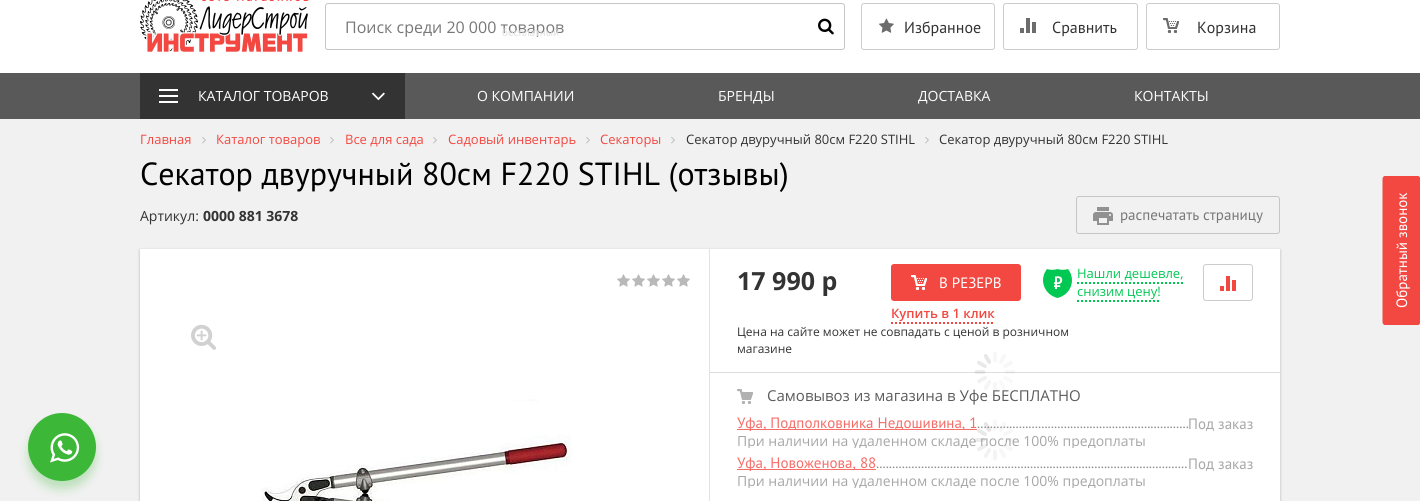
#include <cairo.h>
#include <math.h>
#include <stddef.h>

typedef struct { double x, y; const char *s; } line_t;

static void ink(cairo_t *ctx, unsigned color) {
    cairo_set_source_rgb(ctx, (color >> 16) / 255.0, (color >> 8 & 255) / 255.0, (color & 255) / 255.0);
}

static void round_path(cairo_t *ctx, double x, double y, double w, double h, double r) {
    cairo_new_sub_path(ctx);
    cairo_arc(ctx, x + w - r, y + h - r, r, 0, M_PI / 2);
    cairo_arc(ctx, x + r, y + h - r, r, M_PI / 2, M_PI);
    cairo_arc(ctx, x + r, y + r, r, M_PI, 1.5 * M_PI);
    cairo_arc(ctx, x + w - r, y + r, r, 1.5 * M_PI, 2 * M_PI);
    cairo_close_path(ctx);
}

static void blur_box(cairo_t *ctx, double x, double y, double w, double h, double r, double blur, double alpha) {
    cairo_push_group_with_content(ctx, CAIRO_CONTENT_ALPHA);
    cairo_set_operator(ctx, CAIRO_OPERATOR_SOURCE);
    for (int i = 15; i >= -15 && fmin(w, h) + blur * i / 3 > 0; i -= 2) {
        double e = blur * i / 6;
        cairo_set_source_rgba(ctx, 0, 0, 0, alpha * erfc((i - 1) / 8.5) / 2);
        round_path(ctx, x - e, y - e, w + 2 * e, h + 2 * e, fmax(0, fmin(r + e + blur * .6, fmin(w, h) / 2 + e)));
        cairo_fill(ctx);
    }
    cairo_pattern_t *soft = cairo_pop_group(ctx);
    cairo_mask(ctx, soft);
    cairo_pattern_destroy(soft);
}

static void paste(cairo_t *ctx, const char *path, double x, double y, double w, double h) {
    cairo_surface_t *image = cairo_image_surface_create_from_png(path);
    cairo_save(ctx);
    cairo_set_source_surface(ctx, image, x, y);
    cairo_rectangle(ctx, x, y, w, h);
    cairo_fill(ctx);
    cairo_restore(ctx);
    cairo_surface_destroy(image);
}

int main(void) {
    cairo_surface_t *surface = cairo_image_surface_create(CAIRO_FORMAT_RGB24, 1420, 501);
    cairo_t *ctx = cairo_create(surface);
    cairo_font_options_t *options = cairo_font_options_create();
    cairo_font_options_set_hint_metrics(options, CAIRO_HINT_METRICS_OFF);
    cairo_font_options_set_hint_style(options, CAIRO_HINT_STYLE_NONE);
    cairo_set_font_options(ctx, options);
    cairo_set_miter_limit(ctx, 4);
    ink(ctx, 0xF1F1F1);
    cairo_paint(ctx);
    ink(ctx, 0xFFFFFF);
    cairo_rectangle(ctx, 0, 0, 1420, 73);
    cairo_fill(ctx);
    paste(ctx, "media/1.png", 140, 0, 169, 52);
    round_path(ctx, 325.5, 3.5, 519, 46, 2.5);
    ink(ctx, 0xC6C6C6);
    cairo_set_line_width(ctx, 1);
    cairo_stroke(ctx);
    cairo_select_font_face(ctx, "Open Sans", CAIRO_FONT_SLANT_NORMAL, CAIRO_FONT_WEIGHT_NORMAL);
    cairo_set_font_size(ctx, 16);
    ink(ctx, 0x777777);
    cairo_move_to(ctx, 345, 33);
    cairo_show_text(ctx, "Поиск среди 20 000 товаров");
    paste(ctx, "media/2.png", 818, 18, 16, 17);
    round_path(ctx, 861.5, 3.5, 133, 46, 2.5);
    ink(ctx, 0xCCCCCC);
    cairo_stroke(ctx);
    paste(ctx, "media/3.png", 879, 18, 15, 15);
    cairo_select_font_face(ctx, "PT Sans", CAIRO_FONT_SLANT_NORMAL, CAIRO_FONT_WEIGHT_NORMAL);
    ink(ctx, 0x333333);
    cairo_move_to(ctx, 904, 33);
    cairo_show_text(ctx, "Избранное");
    round_path(ctx, 1003.5, 3.5, 134, 46, 2.5);
    ink(ctx, 0xCCCCCC);
    cairo_stroke(ctx);
    paste(ctx, "media/4.png", 1020, 18, 16, 15);
    ink(ctx, 0x333333);
    cairo_move_to(ctx, 1052, 33);
    cairo_show_text(ctx, "Сравнить");
    round_path(ctx, 1146.5, 3.5, 133, 46, 2.5);
    ink(ctx, 0xCCCCCC);
    cairo_stroke(ctx);
    paste(ctx, "media/5.png", 1163, 18, 16, 15);
    ink(ctx, 0x333333);
    cairo_move_to(ctx, 1197, 33);
    cairo_show_text(ctx, "Корзина");
    cairo_set_font_size(ctx, 11);
    ink(ctx, 0xE0E0E0);
    cairo_move_to(ctx, 502, 36);
    cairo_show_text(ctx, "бесплатный");
    ink(ctx, 0xF24841);
    cairo_new_path(ctx);
    cairo_move_to(ctx, 1383, 322);
    cairo_line_to(ctx, 1383, 179);
    cairo_curve_to(ctx, 1383, 177, 1384, 176, 1386, 176);
    cairo_line_to(ctx, 1417, 176);
    cairo_curve_to(ctx, 1419, 176, 1420, 177, 1420, 179);
    cairo_line_to(ctx, 1420, 322);
    cairo_curve_to(ctx, 1420, 324, 1419, 325, 1417, 325);
    cairo_line_to(ctx, 1386, 325);
    cairo_curve_to(ctx, 1384, 325, 1383, 324, 1383, 322);
    cairo_close_path(ctx);
    cairo_fill(ctx);
    cairo_new_path(ctx);
    cairo_move_to(ctx, 1383, 322);
    cairo_line_to(ctx, 1383, 179);
    cairo_curve_to(ctx, 1383, 177.5, 1384, 176.5, 1385.5, 176.5);
    cairo_line_to(ctx, 1417, 176.5);
    cairo_curve_to(ctx, 1418.5, 176.5, 1419.5, 177.5, 1419.5, 179);
    cairo_line_to(ctx, 1419.5, 322);
    cairo_curve_to(ctx, 1419.5, 323.5, 1418.5, 324.5, 1417, 324.5);
    cairo_line_to(ctx, 1385.5, 324.5);
    cairo_curve_to(ctx, 1384, 324.5, 1383, 323.5, 1383, 322);
    cairo_close_path(ctx);
    cairo_stroke(ctx);
    cairo_set_font_size(ctx, 15);
    ink(ctx, 0xFFFFFF);
    cairo_save(ctx);
    cairo_translate(ctx, 1407, 308);
    cairo_rotate(ctx, -90 * M_PI / 180);
    cairo_move_to(ctx, 0, 0);
    cairo_show_text(ctx, "Обратный звонок");
    cairo_restore(ctx);
    ink(ctx, 0x595959);
    cairo_rectangle(ctx, 0, 73, 1420, 46);
    cairo_fill(ctx);
    ink(ctx, 0x333333);
    cairo_rectangle(ctx, 140, 73, 265, 46);
    cairo_fill(ctx);
    paste(ctx, "media/6.png", 159, 89, 19, 14);
    cairo_select_font_face(ctx, "Open Sans", CAIRO_FONT_SLANT_NORMAL, CAIRO_FONT_WEIGHT_NORMAL);
    cairo_set_font_size(ctx, 14);
    ink(ctx, 0xFFFFFF);
    cairo_move_to(ctx, 198, 101);
    cairo_show_text(ctx, "КАТАЛОГ ТОВАРОВ");
    paste(ctx, "media/7.png", 372, 92, 13, 9);
    {
        static const line_t items[] = {
            {477, 101, "О КОМПАНИИ"},
            {718, 101, "БРЕНДЫ"},
            {918, 101, "ДОСТАВКА"},
            {1134, 101, "КОНТАКТЫ"},
        };
        for (size_t i = 0; i < sizeof items / sizeof *items; i++) {
            cairo_move_to(ctx, items[i].x, items[i].y);
            cairo_show_text(ctx, items[i].s);
        }
    }
    paste(ctx, "media/8.png", 719, 91, 11, 10);
    cairo_set_font_size(ctx, 13);
    ink(ctx, 0xF24841);
    cairo_move_to(ctx, 140, 144);
    cairo_show_text(ctx, "Главная");
    paste(ctx, "media/9.png", 202, 137, 4, 7);
    cairo_move_to(ctx, 216, 144);
    cairo_show_text(ctx, "Каталог товаров");
    paste(ctx, "media/9.png", 330, 137, 4, 7);
    cairo_move_to(ctx, 345, 144);
    cairo_show_text(ctx, "Все для сада");
    paste(ctx, "media/9.png", 433, 137, 4, 7);
    cairo_move_to(ctx, 448, 144);
    cairo_show_text(ctx, "Садовый инвентарь");
    paste(ctx, "media/9.png", 586, 137, 4, 7);
    cairo_move_to(ctx, 600, 144);
    cairo_show_text(ctx, "Секаторы");
    paste(ctx, "media/9.png", 671, 137, 4, 7);
    ink(ctx, 0x333333);
    cairo_move_to(ctx, 686, 144);
    cairo_show_text(ctx, "Секатор двуручный 80см F220 STIHL");
    paste(ctx, "media/9.png", 925, 137, 4, 7);
    cairo_move_to(ctx, 939, 144);
    cairo_show_text(ctx, "Секатор двуручный 80см F220 STIHL");
    cairo_select_font_face(ctx, "PT Sans", CAIRO_FONT_SLANT_NORMAL, CAIRO_FONT_WEIGHT_NORMAL);
    cairo_set_font_size(ctx, 32);
    ink(ctx, 0x000000);
    cairo_move_to(ctx, 140, 185);
    cairo_show_text(ctx, "Секатор двуручный 80см F220 STIHL (отзывы)");
    ink(ctx, 0x3CB738);
    blur_box(ctx, 28, 421, 68, 68, 34, 5, 0.3);
    ink(ctx, 0x3CB738);
    cairo_arc(ctx, 62, 447, 33, 0, 2 * M_PI);
    cairo_fill_preserve(ctx);
    cairo_set_line_width(ctx, 2);
    cairo_stroke(ctx);
    paste(ctx, "media/10.png", 50, 433, 30, 30);
    cairo_select_font_face(ctx, "Open Sans", CAIRO_FONT_SLANT_NORMAL, CAIRO_FONT_WEIGHT_NORMAL);
    cairo_set_font_size(ctx, 14);
    ink(ctx, 0x333333);
    cairo_move_to(ctx, 140, 221);
    cairo_show_text(ctx, "Артикул:");
    cairo_select_font_face(ctx, "Open Sans", CAIRO_FONT_SLANT_NORMAL, CAIRO_FONT_WEIGHT_BOLD);
    cairo_move_to(ctx, 203, 221);
    cairo_show_text(ctx, "0000 881 3678");
    round_path(ctx, 1076.5, 196.5, 203, 37, 2.5);
    ink(ctx, 0xC6C6C6);
    cairo_set_line_width(ctx, 1);
    cairo_stroke(ctx);
    paste(ctx, "media/11.png", 1093, 207, 20, 18);
    cairo_select_font_face(ctx, "PT Sans", CAIRO_FONT_SLANT_NORMAL, CAIRO_FONT_WEIGHT_NORMAL);
    cairo_set_font_size(ctx, 15);
    ink(ctx, 0x777777);
    cairo_move_to(ctx, 1120, 220);
    cairo_show_text(ctx, "распечатать страницу");
    ink(ctx, 0x000000);
    blur_box(ctx, 140, 250, 1140, 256, 0, 1.5, 0.25);
    ink(ctx, 0xFFFFFF);
    cairo_rectangle(ctx, 140, 249, 1140, 252);
    cairo_fill(ctx);
    paste(ctx, "media/12.png", 617, 274, 13, 13);
    paste(ctx, "media/12.png", 632, 274, 13, 13);
    paste(ctx, "media/12.png", 647, 274, 13, 13);
    paste(ctx, "media/12.png", 662, 274, 13, 13);
    paste(ctx, "media/12.png", 677, 274, 13, 13);
    paste(ctx, "media/13.png", 191, 324, 25, 26);
    paste(ctx, "media/14.png", 261, 399, 312, 102);
    ink(ctx, 0xE2E2E2);
    cairo_rectangle(ctx, 709, 249, 1, 252);
    cairo_fill(ctx);
    cairo_select_font_face(ctx, "Open Sans", CAIRO_FONT_SLANT_NORMAL, CAIRO_FONT_WEIGHT_BOLD);
    cairo_set_font_size(ctx, 25);
    ink(ctx, 0x333333);
    cairo_move_to(ctx, 737, 290);
    cairo_show_text(ctx, "17 990 р");
    ink(ctx, 0xF24841);
    round_path(ctx, 891.5, 264.5, 129, 36, 2.5);
    cairo_fill_preserve(ctx);
    cairo_stroke(ctx);
    paste(ctx, "media/15.png", 911, 275, 16, 15);
    cairo_select_font_face(ctx, "PT Sans", CAIRO_FONT_SLANT_NORMAL, CAIRO_FONT_WEIGHT_NORMAL);
    cairo_set_font_size(ctx, 15);
    ink(ctx, 0xFFFFFF);
    cairo_move_to(ctx, 939, 288);
    cairo_show_text(ctx, "В РЕЗЕРВ");
    cairo_select_font_face(ctx, "Open Sans SemiBold", CAIRO_FONT_SLANT_NORMAL, CAIRO_FONT_WEIGHT_NORMAL);
    cairo_set_font_size(ctx, 13);
    ink(ctx, 0xF24841);
    cairo_move_to(ctx, 891, 318);
    cairo_show_text(ctx, "Купить в 1 клик");
    cairo_new_path(ctx);
    cairo_move_to(ctx, 891, 323);
    cairo_line_to(ctx, 995, 323);
    cairo_set_line_width(ctx, 2);
    cairo_set_dash(ctx, (double[]){2, 2}, 2, 0);
    cairo_stroke(ctx);
    paste(ctx, "media/16.png", 1043, 269, 29, 29);
    cairo_select_font_face(ctx, "Open Sans", CAIRO_FONT_SLANT_NORMAL, CAIRO_FONT_WEIGHT_NORMAL);
    ink(ctx, 0x00C853);
    cairo_move_to(ctx, 1077, 278);
    cairo_show_text(ctx, "Нашли дешевле,");
    cairo_new_path(ctx);
    cairo_move_to(ctx, 1077, 283);
    cairo_line_to(ctx, 1184, 283);
    cairo_stroke(ctx);
    cairo_move_to(ctx, 1077, 296);
    cairo_show_text(ctx, "снизим цену!");
    cairo_new_path(ctx);
    cairo_move_to(ctx, 1077, 301);
    cairo_line_to(ctx, 1161, 301);
    cairo_stroke(ctx);
    round_path(ctx, 1203.5, 264.5, 49, 36, 2.5);
    ink(ctx, 0xCCCCCC);
    cairo_set_line_width(ctx, 1);
    cairo_set_dash(ctx, NULL, 0, 0);
    cairo_stroke(ctx);
    paste(ctx, "media/17.png", 1220, 276, 16, 15);
    cairo_set_font_size(ctx, 12);
    ink(ctx, 0x333333);
    cairo_move_to(ctx, 737, 336);
    cairo_show_text(ctx, "Цена на сайте может не совпадать с ценой в розничном");
    cairo_move_to(ctx, 737, 353);
    cairo_show_text(ctx, "магазине");
    ink(ctx, 0xDDDDDD);
    cairo_rectangle(ctx, 710, 372, 570, 1);
    cairo_fill(ctx);
    cairo_set_font_size(ctx, 15);
    ink(ctx, 0x333333);
    cairo_move_to(ctx, 767, 401);
    cairo_show_text(ctx, "Самовывоз из магазина в Уфе БЕСПЛАТНО");
    paste(ctx, "media/18.png", 974, 352, 41, 41);
    paste(ctx, "media/20.png", 737, 389, 16, 15);
    ink(ctx, 0xF24841);
    cairo_rectangle(ctx, 737, 429, 240, 1);
    cairo_fill(ctx);
    cairo_select_font_face(ctx, "PT Sans", CAIRO_FONT_SLANT_NORMAL, CAIRO_FONT_WEIGHT_NORMAL);
    cairo_move_to(ctx, 737, 428);
    cairo_show_text(ctx, "Уфа, Подполковника Недошивина, 1");
    ink(ctx, 0x777777);
    cairo_move_to(ctx, 977, 428);
    cairo_show_text(ctx, "..................................................................");
    ink(ctx, 0x919191);
    cairo_move_to(ctx, 1188, 429);
    cairo_show_text(ctx, "Под заказ");
    cairo_save(ctx);
    cairo_rectangle(ctx, 737, 433, 516, 15);
    cairo_clip(ctx);
    cairo_select_font_face(ctx, "Open Sans", CAIRO_FONT_SLANT_NORMAL, CAIRO_FONT_WEIGHT_NORMAL);
    cairo_set_font_size(ctx, 14);
    cairo_move_to(ctx, 737, 446);
    cairo_show_text(ctx, "При наличии на удаленном складе после 100% предоплаты");
    cairo_restore(ctx);
    ink(ctx, 0xF24841);
    cairo_rectangle(ctx, 737, 469, 139, 1);
    cairo_fill(ctx);
    cairo_move_to(ctx, 737, 468);
    cairo_show_text(ctx, "Уфа, Новоженова, 88");
    ink(ctx, 0x777777);
    cairo_move_to(ctx, 876, 468);
    cairo_show_text(ctx, ".................................................................................................");
    ink(ctx, 0x919191);
    cairo_move_to(ctx, 1188, 469);
    cairo_show_text(ctx, "Под заказ");
    cairo_save(ctx);
    cairo_rectangle(ctx, 737, 473, 516, 15);
    cairo_clip(ctx);
    cairo_select_font_face(ctx, "Open Sans", CAIRO_FONT_SLANT_NORMAL, CAIRO_FONT_WEIGHT_NORMAL);
    cairo_set_font_size(ctx, 14);
    cairo_move_to(ctx, 737, 486);
    cairo_show_text(ctx, "При наличии на удаленном складе после 100% предоплаты");
    cairo_restore(ctx);
    cairo_set_source_rgba(ctx, 1, 1, 1, 0.2);
    cairo_rectangle(ctx, 737, 373, 516, 115);
    cairo_fill(ctx);
    paste(ctx, "media/19.png", 975, 420, 40, 41);
    cairo_surface_write_to_png(surface, "image.png");
    cairo_font_options_destroy(options);
    cairo_destroy(ctx);
    cairo_surface_destroy(surface);
    return 0;
}
